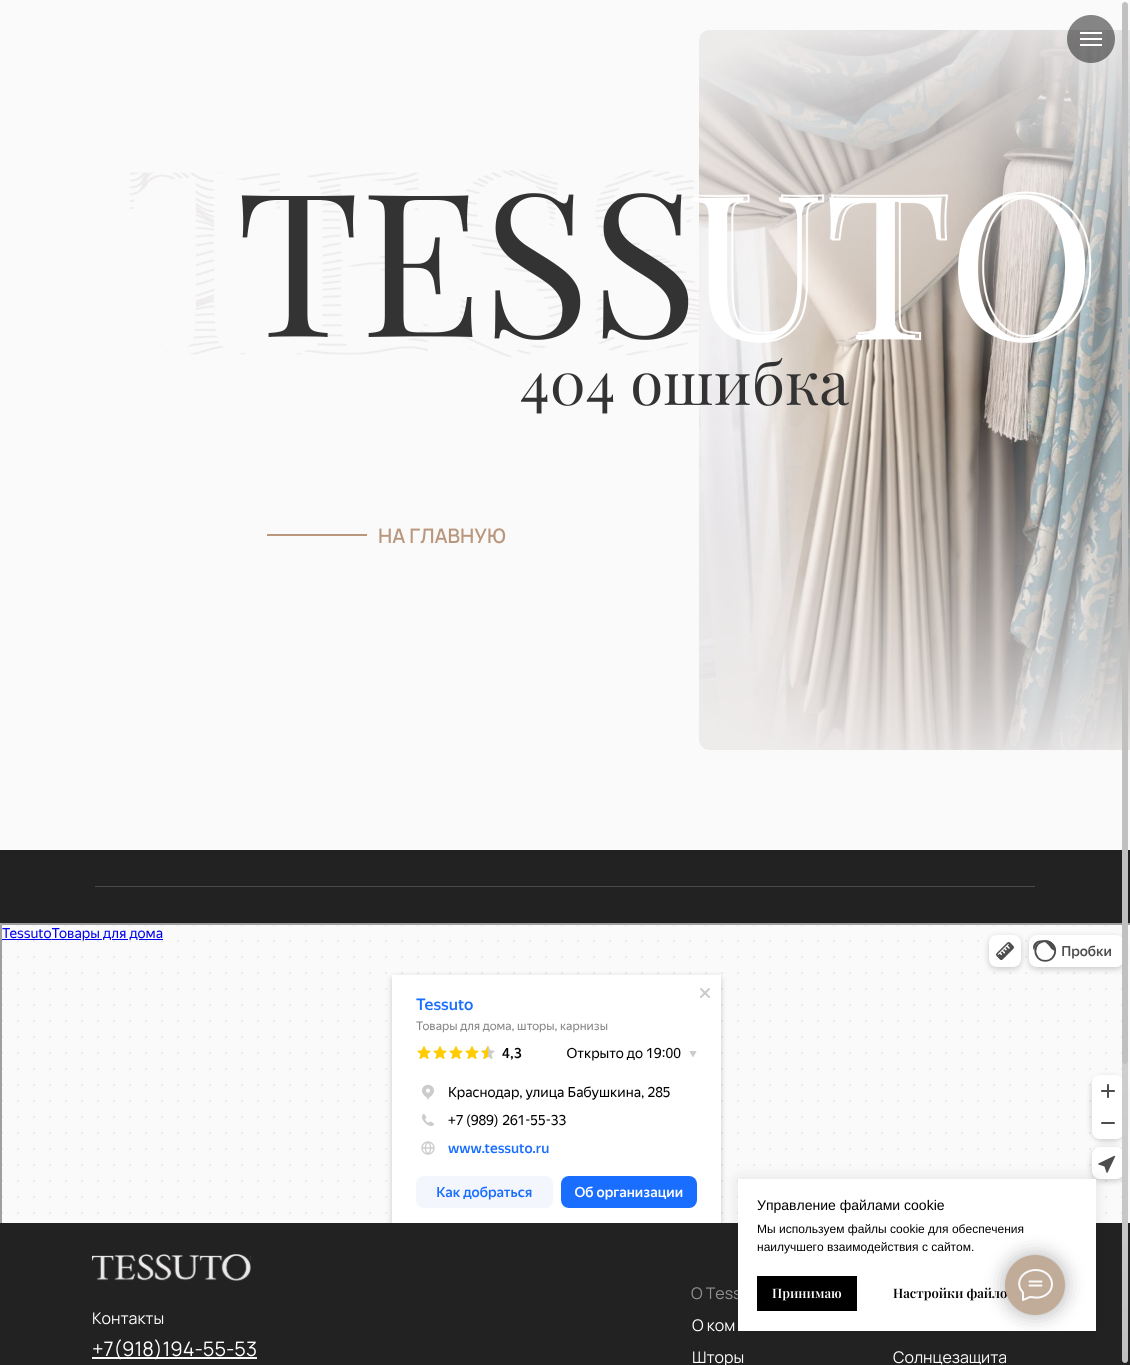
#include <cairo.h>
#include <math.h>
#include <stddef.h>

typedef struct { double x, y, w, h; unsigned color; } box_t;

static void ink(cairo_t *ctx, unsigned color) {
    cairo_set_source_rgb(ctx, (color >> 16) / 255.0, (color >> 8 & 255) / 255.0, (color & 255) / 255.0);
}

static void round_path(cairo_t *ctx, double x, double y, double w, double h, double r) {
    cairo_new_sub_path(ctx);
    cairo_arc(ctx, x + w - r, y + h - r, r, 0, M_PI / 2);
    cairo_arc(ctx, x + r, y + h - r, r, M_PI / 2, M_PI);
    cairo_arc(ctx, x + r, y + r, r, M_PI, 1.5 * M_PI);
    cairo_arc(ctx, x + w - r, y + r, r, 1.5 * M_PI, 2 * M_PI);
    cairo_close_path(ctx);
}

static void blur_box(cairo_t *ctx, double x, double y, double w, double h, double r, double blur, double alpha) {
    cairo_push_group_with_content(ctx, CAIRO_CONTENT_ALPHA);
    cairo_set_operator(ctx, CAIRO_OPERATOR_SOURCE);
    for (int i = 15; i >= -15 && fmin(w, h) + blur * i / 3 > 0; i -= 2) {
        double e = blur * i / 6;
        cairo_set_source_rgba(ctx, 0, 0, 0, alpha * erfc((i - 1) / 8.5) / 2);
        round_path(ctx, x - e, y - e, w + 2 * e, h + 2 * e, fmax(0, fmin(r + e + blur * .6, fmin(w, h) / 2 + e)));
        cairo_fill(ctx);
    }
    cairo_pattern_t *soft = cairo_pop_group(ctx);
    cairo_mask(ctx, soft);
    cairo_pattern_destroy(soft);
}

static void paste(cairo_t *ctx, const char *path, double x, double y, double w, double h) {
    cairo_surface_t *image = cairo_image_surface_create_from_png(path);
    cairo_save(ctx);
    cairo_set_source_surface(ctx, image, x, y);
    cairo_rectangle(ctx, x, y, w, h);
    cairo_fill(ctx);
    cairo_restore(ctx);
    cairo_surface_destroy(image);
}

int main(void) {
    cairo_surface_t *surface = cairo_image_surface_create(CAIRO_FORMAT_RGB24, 1130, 1365);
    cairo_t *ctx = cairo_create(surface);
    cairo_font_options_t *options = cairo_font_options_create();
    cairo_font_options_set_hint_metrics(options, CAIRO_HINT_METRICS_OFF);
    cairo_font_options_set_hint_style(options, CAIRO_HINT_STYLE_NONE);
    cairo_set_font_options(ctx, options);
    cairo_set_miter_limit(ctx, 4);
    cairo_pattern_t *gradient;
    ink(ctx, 0xFFFFFF);
    cairo_paint(ctx);
    ink(ctx, 0xFAFAFA);
    cairo_rectangle(ctx, 0, 0, 1130, 850);
    cairo_fill(ctx);
    paste(ctx, "media/1.png", 129, 170, 570, 187);
    paste(ctx, "media/2.png", 699, 30, 431, 720);
    cairo_select_font_face(ctx, "Playfair Display", CAIRO_FONT_SLANT_NORMAL, CAIRO_FONT_WEIGHT_NORMAL);
    cairo_set_font_size(ctx, 200);
    ink(ctx, 0x333333);
    cairo_move_to(ctx, 236, 337);
    cairo_show_text(ctx, "TESS");
    ink(ctx, 0xFFFFFF);
    cairo_move_to(ctx, 687, 339);
    cairo_show_text(ctx, "UTO");
    cairo_set_font_size(ctx, 60);
    ink(ctx, 0x333333);
    cairo_move_to(ctx, 520, 405);
    cairo_show_text(ctx, "404 ошибка");
    ink(ctx, 0xBA967D);
    cairo_rectangle(ctx, 267, 534, 100, 2);
    cairo_fill(ctx);
    cairo_select_font_face(ctx, "Manrope SemiBold", CAIRO_FONT_SLANT_NORMAL, CAIRO_FONT_WEIGHT_NORMAL);
    cairo_set_font_size(ctx, 20);
    cairo_move_to(ctx, 378, 543);
    cairo_show_text(ctx, "НА ГЛАВНУЮ");
    cairo_set_source_rgba(ctx, 0.067, 0.067, 0.067, 0.5);
    cairo_new_path(ctx);
    cairo_arc(ctx, 1091, 39, 24, 0, 2 * M_PI);
    cairo_fill(ctx);
    {
        static const box_t items[] = {
            {1080, 32, 22, 2, 0xFFFFFF},
            {1080, 38, 22, 2, 0xFFFFFF},
            {1080, 44, 22, 2, 0xFFFFFF},
            {0, 850, 1130, 73, 0x222222},
            {95, 886, 940, 1, 0x4B4A4A},
        };
        for (size_t i = 0; i < sizeof items / sizeof *items; i++) {
            ink(ctx, items[i].color);
            cairo_rectangle(ctx, items[i].x, items[i].y, items[i].w, items[i].h);
            cairo_fill(ctx);
        }
    }
    ink(ctx, 0x9F9F9F);
    cairo_new_path(ctx);
    cairo_move_to(ctx, 0, 923);
    cairo_line_to(ctx, 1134, 923);
    cairo_line_to(ctx, 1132, 925);
    cairo_line_to(ctx, 2, 925);
    cairo_close_path(ctx);
    cairo_fill(ctx);
    cairo_save(ctx);
    cairo_rectangle(ctx, 0, 923, 1130, 300);
    cairo_clip(ctx);
    cairo_new_path(ctx);
    cairo_move_to(ctx, 0, 1327);
    cairo_line_to(ctx, 0, 923);
    cairo_line_to(ctx, 2, 925);
    cairo_line_to(ctx, 2, 1325);
    cairo_close_path(ctx);
    cairo_fill(ctx);
    cairo_restore(ctx);
    paste(ctx, "media/3.png", 2, 925, 1128, 298);
    ink(ctx, 0x222222);
    cairo_rectangle(ctx, 0, 1223, 1130, 142);
    cairo_fill(ctx);
    ink(ctx, 0x000000);
    blur_box(ctx, 738, 1179, 358, 152, 0, 7.5, 0.1);
    cairo_select_font_face(ctx, "Manrope", CAIRO_FONT_SLANT_NORMAL, CAIRO_FONT_WEIGHT_NORMAL);
    cairo_set_font_size(ctx, 16);
    ink(ctx, 0x919191);
    cairo_move_to(ctx, 691, 1299);
    cairo_show_text(ctx, "О Tess");
    ink(ctx, 0xFFFFFF);
    cairo_rectangle(ctx, 738, 1179, 358, 152);
    cairo_fill(ctx);
    cairo_select_font_face(ctx, "Liberation Sans", CAIRO_FONT_SLANT_NORMAL, CAIRO_FONT_WEIGHT_NORMAL);
    cairo_set_font_size(ctx, 14);
    ink(ctx, 0x000000);
    cairo_move_to(ctx, 757, 1210);
    cairo_show_text(ctx, "Управление файлами cookie");
    cairo_set_font_size(ctx, 12);
    cairo_move_to(ctx, 757, 1233);
    cairo_show_text(ctx, "Мы используем файлы cookie для обеспечения");
    cairo_move_to(ctx, 757, 1251);
    cairo_show_text(ctx, "наилучшего взаимодействия с сайтом.");
    cairo_rectangle(ctx, 757, 1276, 100, 35);
    cairo_fill(ctx);
    cairo_select_font_face(ctx, "Playfair Display SemiBold", CAIRO_FONT_SLANT_NORMAL, CAIRO_FONT_WEIGHT_NORMAL);
    cairo_set_font_size(ctx, 13);
    ink(ctx, 0xFFFFFF);
    cairo_move_to(ctx, 772, 1298);
    cairo_show_text(ctx, "Принимаю");
    ink(ctx, 0x000000);
    cairo_move_to(ctx, 893, 1298);
    cairo_show_text(ctx, "Настройки файло");
    ink(ctx, 0x000000);
    blur_box(ctx, 1005, 1255, 60, 60, 30, 10, 0.3);
    ink(ctx, 0xC1AB99);
    cairo_arc(ctx, 1035, 1285, 30, 0, 2 * M_PI);
    cairo_fill(ctx);
    cairo_new_path(ctx);
    cairo_move_to(ctx, 1029.5, 1281.5);
    cairo_line_to(ctx, 1041.5, 1281.5);
    cairo_move_to(ctx, 1029.5, 1285.5);
    cairo_line_to(ctx, 1041.5, 1285.5);
    cairo_move_to(ctx, 1023, 1292.5);
    cairo_curve_to(ctx, 1017.5, 1287, 1018, 1279, 1024, 1274);
    cairo_curve_to(ctx, 1027, 1271.5, 1031.5, 1270, 1035.5, 1270);
    cairo_curve_to(ctx, 1055, 1270, 1058.5, 1294, 1039, 1297.5);
    cairo_curve_to(ctx, 1035, 1298, 1033.5, 1297, 1030, 1297);
    cairo_line_to(ctx, 1023, 1300);
    cairo_line_to(ctx, 1023, 1293);
    cairo_close_path(ctx);
    ink(ctx, 0xFAFAFA);
    cairo_set_line_cap(ctx, CAIRO_LINE_CAP_ROUND);
    cairo_set_line_join(ctx, CAIRO_LINE_JOIN_ROUND);
    cairo_stroke(ctx);
    paste(ctx, "media/4.png", 92, 1254, 159, 27);
    cairo_select_font_face(ctx, "Manrope", CAIRO_FONT_SLANT_NORMAL, CAIRO_FONT_WEIGHT_NORMAL);
    cairo_set_font_size(ctx, 16);
    ink(ctx, 0xFFFFFF);
    cairo_move_to(ctx, 92, 1324);
    cairo_show_text(ctx, "Контакты");
    cairo_move_to(ctx, 692, 1331);
    cairo_show_text(ctx, "О ком");
    ink(ctx, 0xFAFAFA);
    cairo_rectangle(ctx, 92, 1357, 165, 2);
    cairo_fill(ctx);
    cairo_set_font_size(ctx, 20);
    ink(ctx, 0xFFFFFF);
    cairo_move_to(ctx, 92, 1356);
    cairo_show_text(ctx, "+7(918)194-55-53");
    cairo_set_font_size(ctx, 16);
    cairo_move_to(ctx, 692, 1363);
    cairo_show_text(ctx, "Шторы");
    cairo_move_to(ctx, 893, 1363);
    cairo_show_text(ctx, "Солнцезащита");
    gradient = cairo_pattern_create_linear(1125, 2, 1125, 1363);
    cairo_pattern_add_color_stop_rgba(gradient, 0, 1, 1, 1, 1);
    cairo_pattern_add_color_stop_rgba(gradient, 1, 0.753, 0.753, 0.753, 1);
    cairo_set_source(ctx, gradient);
    cairo_pattern_destroy(gradient);
    round_path(ctx, 1122, 2, 6, 1361, 3);
    cairo_fill(ctx);
    ink(ctx, 0xC0C0C0);
    round_path(ctx, 1122, 2, 6, 1062, 3);
    cairo_fill(ctx);
    cairo_surface_write_to_png(surface, "image.png");
    cairo_font_options_destroy(options);
    cairo_destroy(ctx);
    cairo_surface_destroy(surface);
    return 0;
}
